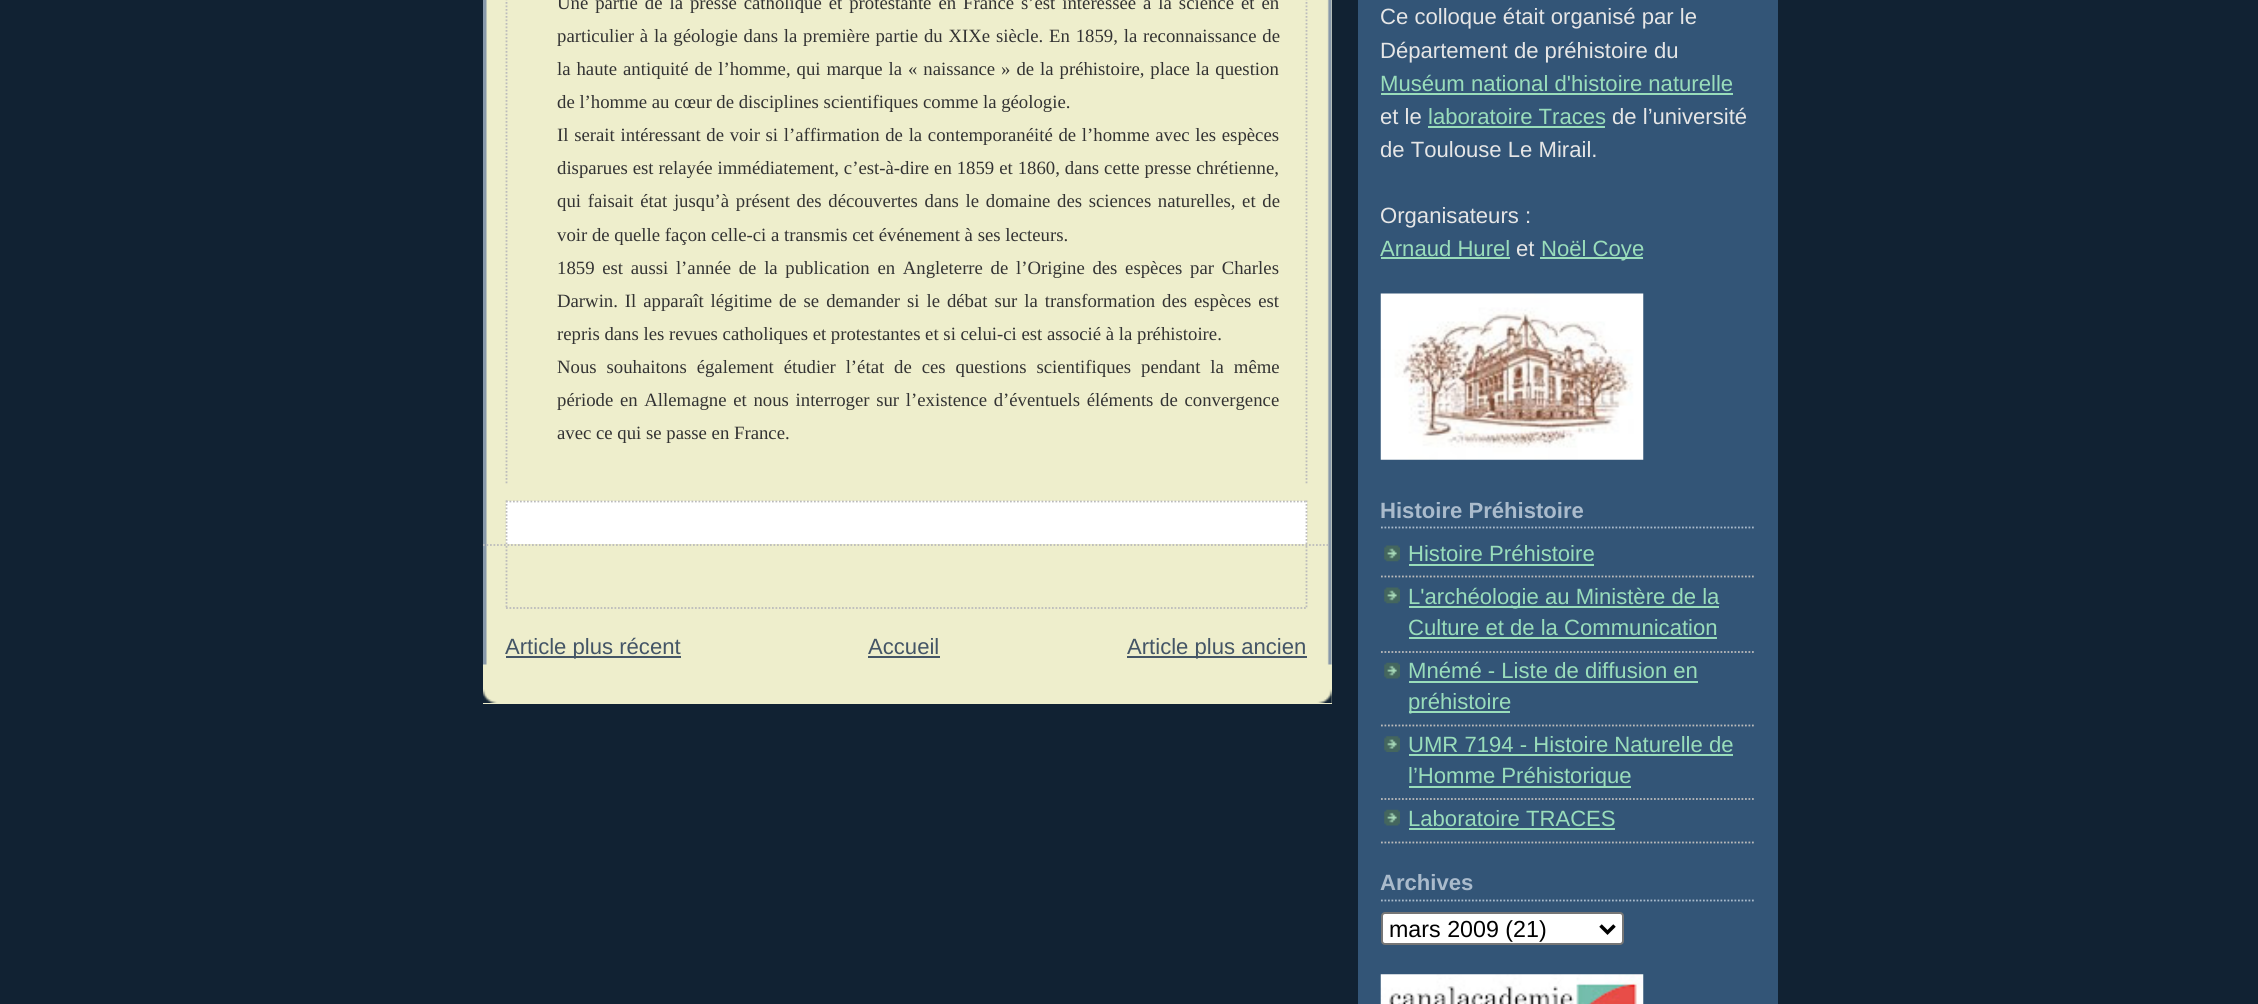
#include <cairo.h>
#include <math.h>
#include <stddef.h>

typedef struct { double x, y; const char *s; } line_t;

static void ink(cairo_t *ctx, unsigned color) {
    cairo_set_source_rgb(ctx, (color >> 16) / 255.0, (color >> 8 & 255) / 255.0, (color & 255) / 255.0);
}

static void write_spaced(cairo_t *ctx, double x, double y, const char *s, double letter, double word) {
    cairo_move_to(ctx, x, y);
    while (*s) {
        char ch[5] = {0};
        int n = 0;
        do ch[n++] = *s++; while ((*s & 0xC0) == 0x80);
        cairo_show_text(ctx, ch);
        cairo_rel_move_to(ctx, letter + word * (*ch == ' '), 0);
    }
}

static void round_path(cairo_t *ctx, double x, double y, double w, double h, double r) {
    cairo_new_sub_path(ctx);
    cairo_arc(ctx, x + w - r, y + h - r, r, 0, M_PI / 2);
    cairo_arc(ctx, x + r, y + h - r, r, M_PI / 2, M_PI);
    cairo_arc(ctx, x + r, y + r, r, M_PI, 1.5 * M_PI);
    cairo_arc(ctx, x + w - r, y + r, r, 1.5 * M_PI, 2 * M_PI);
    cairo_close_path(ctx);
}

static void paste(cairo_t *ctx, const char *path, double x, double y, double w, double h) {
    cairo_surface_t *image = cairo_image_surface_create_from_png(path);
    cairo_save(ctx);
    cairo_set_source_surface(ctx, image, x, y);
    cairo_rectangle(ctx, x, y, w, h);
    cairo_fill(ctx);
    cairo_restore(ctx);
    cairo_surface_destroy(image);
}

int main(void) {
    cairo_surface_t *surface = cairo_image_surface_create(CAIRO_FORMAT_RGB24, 2258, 1004);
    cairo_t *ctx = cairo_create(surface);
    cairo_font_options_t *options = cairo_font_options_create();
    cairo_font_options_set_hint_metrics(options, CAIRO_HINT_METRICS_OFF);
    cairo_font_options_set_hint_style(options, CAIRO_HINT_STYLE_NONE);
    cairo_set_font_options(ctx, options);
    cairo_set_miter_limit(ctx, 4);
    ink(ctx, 0x112233);
    cairo_paint(ctx);
    ink(ctx, 0xEEEECC);
    cairo_rectangle(ctx, 483, 0, 849, 704);
    cairo_fill(ctx);
    paste(ctx, "media/1.png", 483, 689, 849, 14);
    paste(ctx, "media/2.png", 483, 0, 849, 665);
    cairo_new_path(ctx);
    cairo_move_to(ctx, 483, 545);
    cairo_line_to(ctx, 1330, 545);
    ink(ctx, 0xBBBBBB);
    cairo_set_line_width(ctx, 1.8);
    cairo_set_dash(ctx, (double[]){1.75, 1.75}, 2, 0);
    cairo_stroke(ctx);
    cairo_new_path(ctx);
    cairo_move_to(ctx, 1306.5, -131);
    cairo_line_to(ctx, 1306.5, 485);
    cairo_stroke(ctx);
    cairo_new_path(ctx);
    cairo_move_to(ctx, 506.5, -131);
    cairo_line_to(ctx, 506.5, 485);
    cairo_stroke(ctx);
    cairo_select_font_face(ctx, "Liberation Serif", CAIRO_FONT_SLANT_NORMAL, CAIRO_FONT_WEIGHT_NORMAL);
    cairo_set_font_size(ctx, 18.75);
    ink(ctx, 0x333333);
    write_spaced(ctx, 557, 9, "Une partie de la presse catholique et protestante en France s’est intéressée à la science et en", 0, 2.25);
    write_spaced(ctx, 557, 42, "particulier à la géologie dans la première partie du XIXe siècle. En 1859, la reconnaissance de", 0, 1.1);
    write_spaced(ctx, 557, 75, "la haute antiquité de l’homme, qui marque la « naissance » de la préhistoire, place la question", 0, 1.25);
    cairo_move_to(ctx, 557, 108);
    cairo_show_text(ctx, "de l’homme au cœur de disciplines scientifiques comme la géologie.");
    write_spaced(ctx, 557, 141, "Il serait intéressant de voir si l’affirmation de la contemporanéité de l’homme avec les espèces", 0, 1);
    write_spaced(ctx, 557, 174, "disparues est relayée immédiatement, c’est-à-dire en 1859 et 1860, dans cette presse chrétienne,", 0, 0.25);
    write_spaced(ctx, 557, 207, "qui faisait état jusqu’à présent des découvertes dans le domaine des sciences naturelles, et de", 0, 2);
    cairo_move_to(ctx, 557, 241);
    cairo_show_text(ctx, "voir de quelle façon celle-ci a transmis cet événement à ses lecteurs.");
    write_spaced(ctx, 557, 274, "1859 est aussi l’année de la publication en Angleterre de l’Origine des espèces par Charles", 0, 3);
    write_spaced(ctx, 557, 307, "Darwin. Il apparaît légitime de se demander si le débat sur la transformation des espèces est", 0, 2.25);
    cairo_move_to(ctx, 557, 340);
    cairo_show_text(ctx, "repris dans les revues catholiques et protestantes et si celui-ci est associé à la préhistoire.");
    write_spaced(ctx, 557, 373, "Nous souhaitons également étudier l’état de ces questions scientifiques pendant la même", 0, 5.25);
    write_spaced(ctx, 557, 406, "période en Allemagne et nous interroger sur l’existence d’éventuels éléments de convergence", 0, 2);
    cairo_move_to(ctx, 557, 439);
    cairo_show_text(ctx, "avec ce qui se passe en France.");
    ink(ctx, 0xFFFFFF);
    cairo_rectangle(ctx, 506, 501, 801, 43);
    cairo_fill(ctx);
    cairo_new_path(ctx);
    cairo_move_to(ctx, 506, 501.5);
    cairo_line_to(ctx, 1307, 501.5);
    ink(ctx, 0xBBBBBB);
    cairo_stroke(ctx);
    cairo_new_path(ctx);
    cairo_move_to(ctx, 1306.5, 500.5);
    cairo_line_to(ctx, 1306.5, 544);
    cairo_stroke(ctx);
    cairo_new_path(ctx);
    cairo_move_to(ctx, 506.5, 500.5);
    cairo_line_to(ctx, 506.5, 544);
    cairo_stroke(ctx);
    cairo_new_path(ctx);
    cairo_move_to(ctx, 1306.5, 546);
    cairo_line_to(ctx, 1306.5, 609);
    cairo_stroke(ctx);
    cairo_new_path(ctx);
    cairo_move_to(ctx, 506, 608);
    cairo_line_to(ctx, 1307, 608);
    cairo_stroke(ctx);
    cairo_new_path(ctx);
    cairo_move_to(ctx, 506.5, 546);
    cairo_line_to(ctx, 506.5, 609);
    cairo_stroke(ctx);
    ink(ctx, 0x445566);
    cairo_rectangle(ctx, 506, 656, 175, 2);
    cairo_fill(ctx);
    cairo_select_font_face(ctx, "Liberation Sans", CAIRO_FONT_SLANT_NORMAL, CAIRO_FONT_WEIGHT_NORMAL);
    cairo_set_font_size(ctx, 22.1);
    cairo_move_to(ctx, 505, 654);
    cairo_show_text(ctx, "Article plus récent");
    cairo_move_to(ctx, 868, 654);
    cairo_show_text(ctx, "Accueil");
    cairo_rectangle(ctx, 868, 656, 72, 2);
    cairo_fill(ctx);
    cairo_rectangle(ctx, 1127, 656, 180, 2);
    cairo_fill(ctx);
    cairo_move_to(ctx, 1127, 654);
    cairo_show_text(ctx, "Article plus ancien");
    ink(ctx, 0x335577);
    cairo_rectangle(ctx, 1358, 0, 420, 1004);
    cairo_fill(ctx);
    ink(ctx, 0xE6E6E6);
    cairo_move_to(ctx, 1380, 24);
    cairo_show_text(ctx, "Ce colloque était organisé par le");
    cairo_move_to(ctx, 1380, 58);
    cairo_show_text(ctx, "Département de préhistoire du");
    ink(ctx, 0x99DDBB);
    cairo_move_to(ctx, 1380, 91);
    cairo_show_text(ctx, "Muséum national d'histoire naturelle");
    cairo_rectangle(ctx, 1381, 93, 352, 2);
    cairo_fill(ctx);
    ink(ctx, 0xE6E6E6);
    cairo_move_to(ctx, 1380, 124);
    cairo_show_text(ctx, "et le");
    ink(ctx, 0x99DDBB);
    cairo_move_to(ctx, 1428, 124);
    cairo_show_text(ctx, "laboratoire Traces");
    cairo_rectangle(ctx, 1428, 126, 177, 2);
    cairo_fill(ctx);
    ink(ctx, 0xE6E6E6);
    {
        static const line_t items[] = {
            {1612, 124, "de l’université"},
            {1380, 157, "de Toulouse Le Mirail."},
            {1380, 223, "Organisateurs :"},
        };
        for (size_t i = 0; i < sizeof items / sizeof *items; i++) {
            cairo_move_to(ctx, items[i].x, items[i].y);
            cairo_show_text(ctx, items[i].s);
        }
    }
    ink(ctx, 0x99DDBB);
    cairo_move_to(ctx, 1380, 256);
    cairo_show_text(ctx, "Arnaud Hurel");
    cairo_rectangle(ctx, 1381, 257, 129, 2);
    cairo_fill(ctx);
    ink(ctx, 0xE6E6E6);
    cairo_move_to(ctx, 1516, 256);
    cairo_show_text(ctx, "et");
    ink(ctx, 0x99DDBB);
    cairo_rectangle(ctx, 1540, 257, 103, 2);
    cairo_fill(ctx);
    cairo_move_to(ctx, 1541, 256);
    cairo_show_text(ctx, "Noël Coye");
    paste(ctx, "media/3.png", 1380, 293, 264, 167);
    cairo_new_path(ctx);
    cairo_move_to(ctx, 1381, 527.5);
    cairo_line_to(ctx, 1755, 527.5);
    ink(ctx, 0xAABBCC);
    cairo_stroke(ctx);
    cairo_select_font_face(ctx, "Liberation Sans", CAIRO_FONT_SLANT_NORMAL, CAIRO_FONT_WEIGHT_BOLD);
    cairo_move_to(ctx, 1380, 518);
    cairo_show_text(ctx, "Histoire Préhistoire");
    paste(ctx, "media/4.png", 1384, 545, 16, 17);
    cairo_new_path(ctx);
    cairo_move_to(ctx, 1381, 576.5);
    cairo_line_to(ctx, 1755, 576.5);
    ink(ctx, 0xBBBBBB);
    cairo_stroke(ctx);
    cairo_select_font_face(ctx, "Liberation Sans", CAIRO_FONT_SLANT_NORMAL, CAIRO_FONT_WEIGHT_NORMAL);
    ink(ctx, 0x99DDBB);
    cairo_move_to(ctx, 1408, 561);
    cairo_show_text(ctx, "Histoire Préhistoire");
    cairo_rectangle(ctx, 1409, 564, 185, 2);
    cairo_fill(ctx);
    paste(ctx, "media/4.png", 1384, 587, 16, 17);
    cairo_new_path(ctx);
    cairo_move_to(ctx, 1381, 652);
    cairo_line_to(ctx, 1755, 652);
    ink(ctx, 0xBBBBBB);
    cairo_stroke(ctx);
    ink(ctx, 0x99DDBB);
    cairo_rectangle(ctx, 1409, 606, 310, 2);
    cairo_fill(ctx);
    cairo_move_to(ctx, 1408, 604);
    cairo_show_text(ctx, "L'archéologie au Ministère de la");
    cairo_move_to(ctx, 1408, 635);
    cairo_show_text(ctx, "Culture et de la Communication");
    cairo_rectangle(ctx, 1409, 637, 308, 2);
    cairo_fill(ctx);
    paste(ctx, "media/5.png", 1384, 662, 16, 17);
    cairo_new_path(ctx);
    cairo_move_to(ctx, 1381, 725.5);
    cairo_line_to(ctx, 1755, 725.5);
    ink(ctx, 0xBBBBBB);
    cairo_stroke(ctx);
    ink(ctx, 0x99DDBB);
    cairo_move_to(ctx, 1408, 678);
    cairo_show_text(ctx, "Mnémé - Liste de diffusion en");
    cairo_rectangle(ctx, 1409, 681, 289, 2);
    cairo_fill(ctx);
    cairo_rectangle(ctx, 1409, 711, 101, 2);
    cairo_fill(ctx);
    cairo_move_to(ctx, 1408, 709);
    cairo_show_text(ctx, "préhistoire");
    paste(ctx, "media/6.png", 1384, 736, 16, 16);
    cairo_new_path(ctx);
    cairo_move_to(ctx, 1381, 799);
    cairo_line_to(ctx, 1755, 799);
    ink(ctx, 0xBBBBBB);
    cairo_stroke(ctx);
    ink(ctx, 0x99DDBB);
    cairo_move_to(ctx, 1408, 752);
    cairo_show_text(ctx, "UMR 7194 - Histoire Naturelle de");
    cairo_rectangle(ctx, 1409, 754, 324, 2);
    cairo_fill(ctx);
    cairo_rectangle(ctx, 1409, 786, 222, 2);
    cairo_fill(ctx);
    cairo_move_to(ctx, 1408, 783);
    cairo_show_text(ctx, "l’Homme Préhistorique");
    paste(ctx, "media/5.png", 1384, 809, 16, 17);
    cairo_new_path(ctx);
    cairo_move_to(ctx, 1381, 842.5);
    cairo_line_to(ctx, 1755, 842.5);
    ink(ctx, 0xBBBBBB);
    cairo_stroke(ctx);
    ink(ctx, 0x99DDBB);
    cairo_move_to(ctx, 1408, 826);
    cairo_show_text(ctx, "Laboratoire TRACES");
    cairo_rectangle(ctx, 1409, 828, 206, 2);
    cairo_fill(ctx);
    cairo_new_path(ctx);
    cairo_move_to(ctx, 1381, 900.5);
    cairo_line_to(ctx, 1755, 900.5);
    ink(ctx, 0xAABBCC);
    cairo_stroke(ctx);
    cairo_select_font_face(ctx, "Liberation Sans", CAIRO_FONT_SLANT_NORMAL, CAIRO_FONT_WEIGHT_BOLD);
    cairo_move_to(ctx, 1380, 890);
    cairo_show_text(ctx, "Archives");
    ink(ctx, 0xFFFFFF);
    round_path(ctx, 1382, 913, 241, 31, 3);
    cairo_fill_preserve(ctx);
    ink(ctx, 0x767676);
    cairo_set_line_width(ctx, 2);
    cairo_set_dash(ctx, NULL, 0, 0);
    cairo_stroke(ctx);
    cairo_new_path(ctx);
    cairo_move_to(ctx, 1600.5, 925.5);
    cairo_line_to(ctx, 1607.5, 932.5);
    cairo_line_to(ctx, 1614.5, 925.5);
    ink(ctx, 0x000000);
    cairo_set_line_width(ctx, 3.5);
    cairo_stroke(ctx);
    cairo_select_font_face(ctx, "Liberation Sans", CAIRO_FONT_SLANT_NORMAL, CAIRO_FONT_WEIGHT_NORMAL);
    cairo_set_font_size(ctx, 23.25);
    cairo_move_to(ctx, 1389, 937);
    cairo_show_text(ctx, "mars 2009 (21)");
    paste(ctx, "media/7.png", 1380, 974, 264, 30);
    cairo_surface_write_to_png(surface, "image.png");
    cairo_font_options_destroy(options);
    cairo_destroy(ctx);
    cairo_surface_destroy(surface);
    return 0;
}
